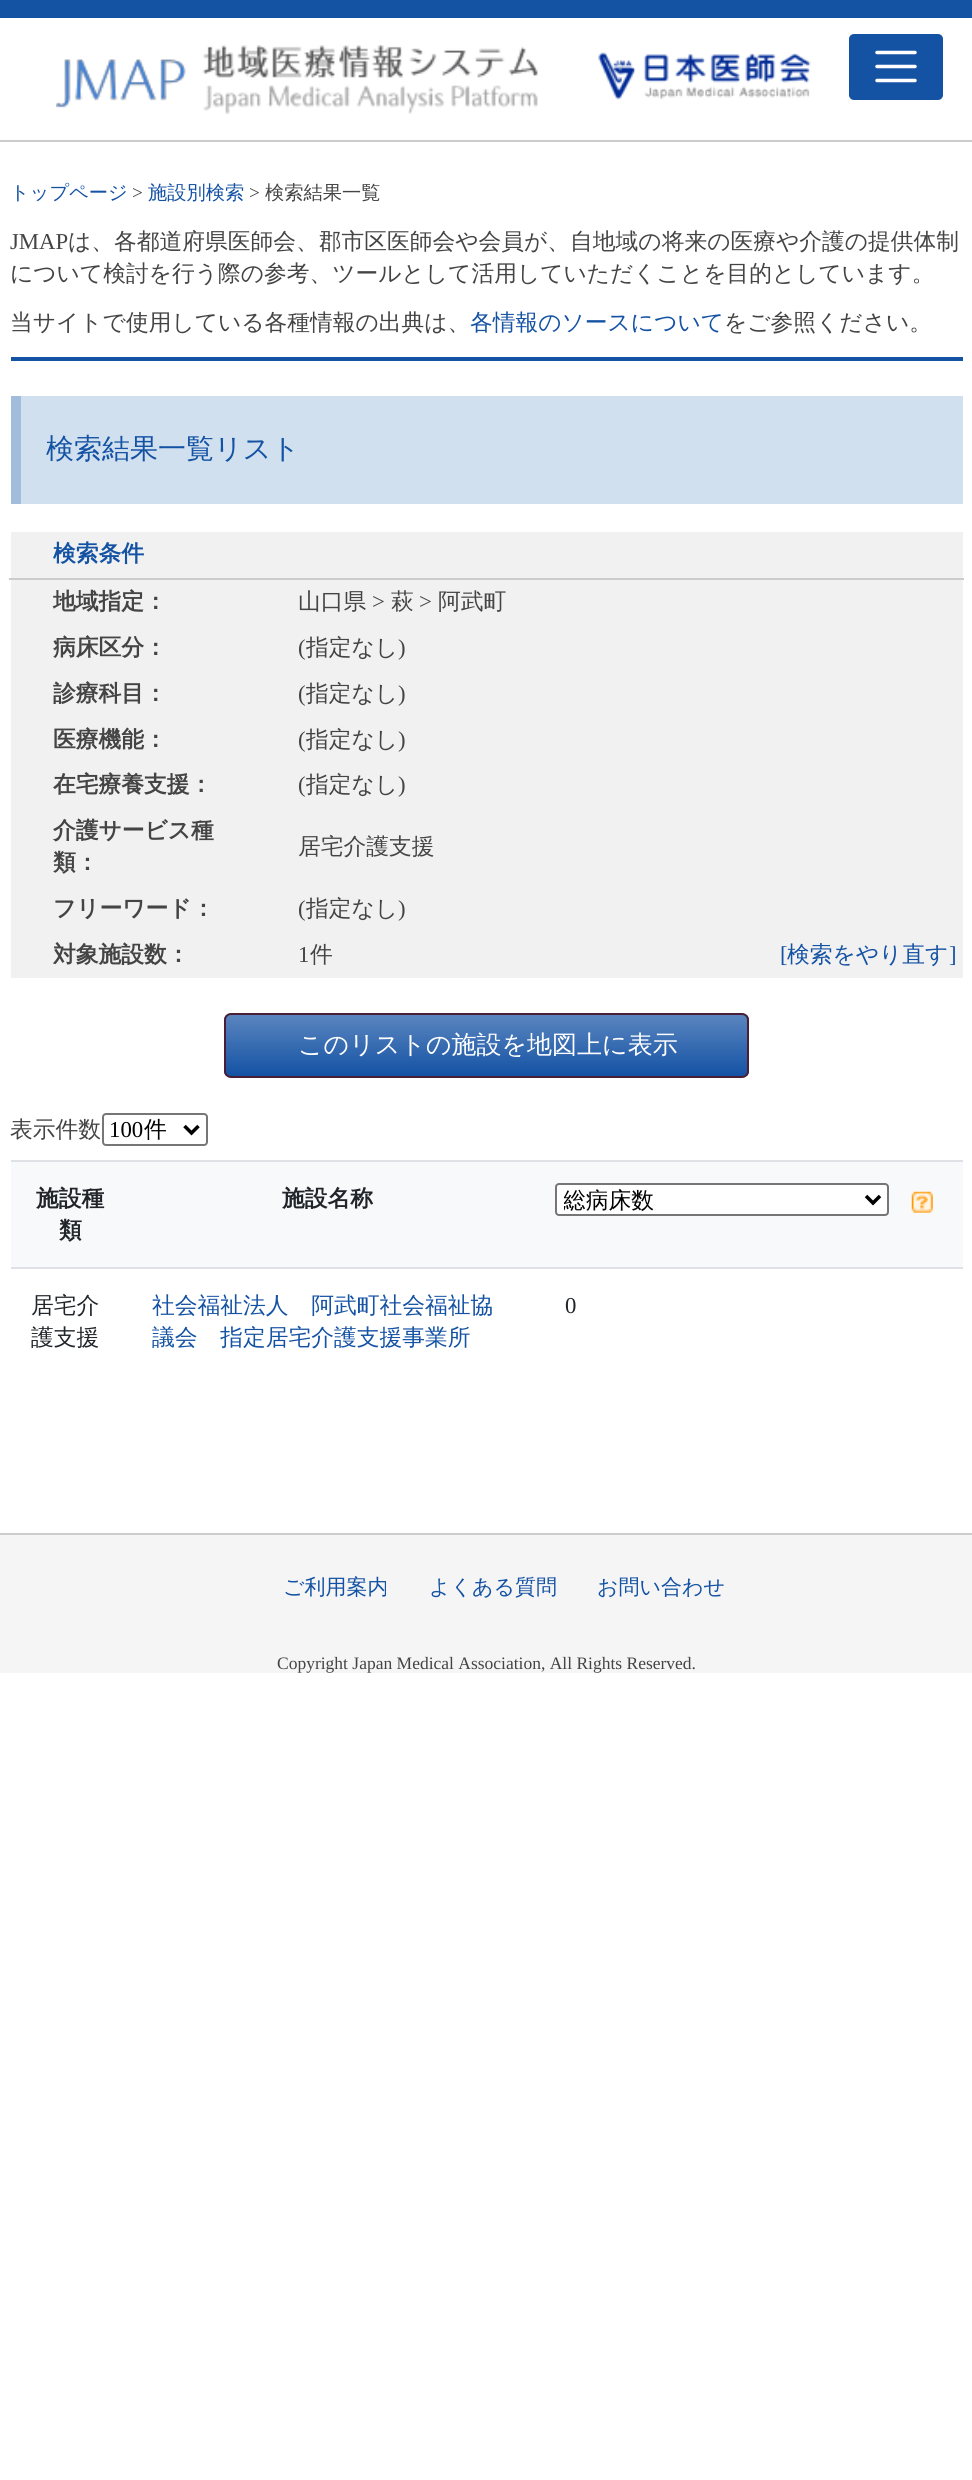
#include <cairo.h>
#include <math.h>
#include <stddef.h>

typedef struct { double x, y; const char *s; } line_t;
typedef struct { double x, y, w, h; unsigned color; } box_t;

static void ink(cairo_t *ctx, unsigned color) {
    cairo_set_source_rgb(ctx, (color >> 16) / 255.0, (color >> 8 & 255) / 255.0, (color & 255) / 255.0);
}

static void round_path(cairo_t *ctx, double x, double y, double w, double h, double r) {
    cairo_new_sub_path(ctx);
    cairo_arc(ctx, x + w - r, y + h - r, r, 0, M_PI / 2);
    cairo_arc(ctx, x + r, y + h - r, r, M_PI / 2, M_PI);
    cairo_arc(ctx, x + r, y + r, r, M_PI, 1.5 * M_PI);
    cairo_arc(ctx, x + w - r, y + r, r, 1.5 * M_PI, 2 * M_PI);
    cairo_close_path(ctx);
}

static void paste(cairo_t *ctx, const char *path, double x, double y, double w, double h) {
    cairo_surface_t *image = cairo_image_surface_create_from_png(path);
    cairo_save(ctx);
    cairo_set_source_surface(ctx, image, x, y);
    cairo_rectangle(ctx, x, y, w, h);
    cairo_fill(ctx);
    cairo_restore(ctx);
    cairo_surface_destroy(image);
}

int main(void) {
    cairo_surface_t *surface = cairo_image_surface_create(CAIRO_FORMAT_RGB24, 972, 2480);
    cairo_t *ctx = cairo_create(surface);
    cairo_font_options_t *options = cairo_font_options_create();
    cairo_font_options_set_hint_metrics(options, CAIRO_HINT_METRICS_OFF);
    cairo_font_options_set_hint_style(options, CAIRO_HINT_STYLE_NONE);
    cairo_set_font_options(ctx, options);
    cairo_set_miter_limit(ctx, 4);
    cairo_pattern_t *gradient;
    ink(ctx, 0xFFFFFF);
    cairo_paint(ctx);
    ink(ctx, 0x1452A4);
    cairo_rectangle(ctx, 0, 0, 972, 18);
    cairo_fill(ctx);
    ink(ctx, 0xCCCCCC);
    cairo_rectangle(ctx, 0, 140, 972, 2);
    cairo_fill(ctx);
    paste(ctx, "media/1.png", 56, 45, 482, 69);
    paste(ctx, "media/2.png", 598, 52, 213, 48);
    ink(ctx, 0x1452A4);
    round_path(ctx, 848, 33, 96, 68, 6);
    cairo_fill_preserve(ctx);
    ink(ctx, 0xFFFFFF);
    cairo_stroke(ctx);
    cairo_new_path(ctx);
    cairo_move_to(ctx, 877, 52.5);
    cairo_line_to(ctx, 915, 52.5);
    cairo_move_to(ctx, 877, 66.5);
    cairo_line_to(ctx, 915, 66.5);
    cairo_move_to(ctx, 877, 80.5);
    cairo_line_to(ctx, 915, 80.5);
    cairo_set_line_width(ctx, 3.5);
    cairo_set_line_cap(ctx, CAIRO_LINE_CAP_ROUND);
    cairo_stroke(ctx);
    cairo_select_font_face(ctx, "WenQuanYi Zen Hei Medium", CAIRO_FONT_SLANT_NORMAL, CAIRO_FONT_WEIGHT_NORMAL);
    cairo_set_font_size(ctx, 19.25);
    ink(ctx, 0x1452A4);
    cairo_move_to(ctx, 10, 199);
    cairo_show_text(ctx, "トップページ");
    cairo_select_font_face(ctx, "Liberation Serif", CAIRO_FONT_SLANT_NORMAL, CAIRO_FONT_WEIGHT_NORMAL);
    ink(ctx, 0x444444);
    cairo_move_to(ctx, 132, 199);
    cairo_show_text(ctx, ">");
    cairo_select_font_face(ctx, "WenQuanYi Zen Hei Medium", CAIRO_FONT_SLANT_NORMAL, CAIRO_FONT_WEIGHT_NORMAL);
    ink(ctx, 0x1452A4);
    cairo_move_to(ctx, 148, 199);
    cairo_show_text(ctx, "施設別検索");
    cairo_select_font_face(ctx, "Liberation Serif", CAIRO_FONT_SLANT_NORMAL, CAIRO_FONT_WEIGHT_NORMAL);
    ink(ctx, 0x444444);
    cairo_move_to(ctx, 249, 199);
    cairo_show_text(ctx, ">");
    cairo_select_font_face(ctx, "WenQuanYi Zen Hei Medium", CAIRO_FONT_SLANT_NORMAL, CAIRO_FONT_WEIGHT_NORMAL);
    cairo_move_to(ctx, 265, 199);
    cairo_show_text(ctx, "検索結果一覧");
    cairo_select_font_face(ctx, "Liberation Serif", CAIRO_FONT_SLANT_NORMAL, CAIRO_FONT_WEIGHT_NORMAL);
    cairo_set_font_size(ctx, 22.75);
    cairo_move_to(ctx, 10, 249);
    cairo_show_text(ctx, "JMAP");
    cairo_select_font_face(ctx, "WenQuanYi Zen Hei Medium", CAIRO_FONT_SLANT_NORMAL, CAIRO_FONT_WEIGHT_NORMAL);
    {
        static const line_t items[] = {
            {68, 249, "は、各都道府県医師会、郡市区医師会や会員が、自地域の将来の医療や介護の提供体制"},
            {10, 281, "について検討を行う際の参考、ツールとして活用していただくことを目的としています。"},
            {10, 330, "当サイトで使用している各種情報の出典は、"},
        };
        for (size_t i = 0; i < sizeof items / sizeof *items; i++) {
            cairo_move_to(ctx, items[i].x, items[i].y);
            cairo_show_text(ctx, items[i].s);
        }
    }
    ink(ctx, 0x1452A4);
    cairo_move_to(ctx, 470, 330);
    cairo_show_text(ctx, "各情報のソースについて");
    ink(ctx, 0x444444);
    cairo_move_to(ctx, 724, 330);
    cairo_show_text(ctx, "をご参照ください。");
    {
        static const box_t items[] = {
            {11, 357, 952, 4, 0x1452A4},
            {21, 396, 942, 108, 0xD1E0EF},
            {11, 396, 10, 108, 0xA2BDDC},
        };
        for (size_t i = 0; i < sizeof items / sizeof *items; i++) {
            ink(ctx, items[i].color);
            cairo_rectangle(ctx, items[i].x, items[i].y, items[i].w, items[i].h);
            cairo_fill(ctx);
        }
    }
    cairo_set_font_size(ctx, 28);
    ink(ctx, 0x1452A4);
    cairo_move_to(ctx, 46, 458);
    cairo_show_text(ctx, "検索結果一覧リスト");
    ink(ctx, 0xF1F1F1);
    cairo_rectangle(ctx, 11, 532, 952, 446);
    cairo_fill(ctx);
    ink(ctx, 0xCCCCCC);
    cairo_rectangle(ctx, 9, 578, 955, 2);
    cairo_fill(ctx);
    cairo_select_font_face(ctx, "WenQuanYi Zen Hei", CAIRO_FONT_SLANT_NORMAL, CAIRO_FONT_WEIGHT_BOLD);
    cairo_set_font_size(ctx, 22.75);
    ink(ctx, 0x1452A4);
    cairo_move_to(ctx, 53, 561);
    cairo_show_text(ctx, "検索条件");
    ink(ctx, 0x444444);
    cairo_move_to(ctx, 53, 609);
    cairo_show_text(ctx, "地域指定：");
    cairo_select_font_face(ctx, "WenQuanYi Zen Hei Medium", CAIRO_FONT_SLANT_NORMAL, CAIRO_FONT_WEIGHT_NORMAL);
    cairo_move_to(ctx, 298, 609);
    cairo_show_text(ctx, "山口県");
    cairo_select_font_face(ctx, "Liberation Serif", CAIRO_FONT_SLANT_NORMAL, CAIRO_FONT_WEIGHT_NORMAL);
    cairo_move_to(ctx, 372, 609);
    cairo_show_text(ctx, ">");
    cairo_select_font_face(ctx, "WenQuanYi Zen Hei Medium", CAIRO_FONT_SLANT_NORMAL, CAIRO_FONT_WEIGHT_NORMAL);
    cairo_move_to(ctx, 391, 609);
    cairo_show_text(ctx, "萩");
    cairo_select_font_face(ctx, "Liberation Serif", CAIRO_FONT_SLANT_NORMAL, CAIRO_FONT_WEIGHT_NORMAL);
    cairo_move_to(ctx, 419, 609);
    cairo_show_text(ctx, ">");
    cairo_select_font_face(ctx, "WenQuanYi Zen Hei Medium", CAIRO_FONT_SLANT_NORMAL, CAIRO_FONT_WEIGHT_NORMAL);
    cairo_move_to(ctx, 438, 609);
    cairo_show_text(ctx, "阿武町");
    cairo_select_font_face(ctx, "WenQuanYi Zen Hei", CAIRO_FONT_SLANT_NORMAL, CAIRO_FONT_WEIGHT_BOLD);
    cairo_move_to(ctx, 53, 655);
    cairo_show_text(ctx, "病床区分：");
    cairo_select_font_face(ctx, "Liberation Serif", CAIRO_FONT_SLANT_NORMAL, CAIRO_FONT_WEIGHT_NORMAL);
    cairo_move_to(ctx, 298, 655);
    cairo_show_text(ctx, "(");
    cairo_select_font_face(ctx, "WenQuanYi Zen Hei Medium", CAIRO_FONT_SLANT_NORMAL, CAIRO_FONT_WEIGHT_NORMAL);
    cairo_move_to(ctx, 306, 655);
    cairo_show_text(ctx, "指定なし");
    cairo_select_font_face(ctx, "Liberation Serif", CAIRO_FONT_SLANT_NORMAL, CAIRO_FONT_WEIGHT_NORMAL);
    cairo_move_to(ctx, 398, 655);
    cairo_show_text(ctx, ")");
    cairo_select_font_face(ctx, "WenQuanYi Zen Hei", CAIRO_FONT_SLANT_NORMAL, CAIRO_FONT_WEIGHT_BOLD);
    cairo_move_to(ctx, 53, 701);
    cairo_show_text(ctx, "診療科目：");
    cairo_select_font_face(ctx, "Liberation Serif", CAIRO_FONT_SLANT_NORMAL, CAIRO_FONT_WEIGHT_NORMAL);
    cairo_move_to(ctx, 298, 701);
    cairo_show_text(ctx, "(");
    cairo_select_font_face(ctx, "WenQuanYi Zen Hei Medium", CAIRO_FONT_SLANT_NORMAL, CAIRO_FONT_WEIGHT_NORMAL);
    cairo_move_to(ctx, 306, 701);
    cairo_show_text(ctx, "指定なし");
    cairo_select_font_face(ctx, "Liberation Serif", CAIRO_FONT_SLANT_NORMAL, CAIRO_FONT_WEIGHT_NORMAL);
    cairo_move_to(ctx, 398, 701);
    cairo_show_text(ctx, ")");
    cairo_select_font_face(ctx, "WenQuanYi Zen Hei", CAIRO_FONT_SLANT_NORMAL, CAIRO_FONT_WEIGHT_BOLD);
    cairo_move_to(ctx, 53, 747);
    cairo_show_text(ctx, "医療機能：");
    cairo_select_font_face(ctx, "Liberation Serif", CAIRO_FONT_SLANT_NORMAL, CAIRO_FONT_WEIGHT_NORMAL);
    cairo_move_to(ctx, 298, 747);
    cairo_show_text(ctx, "(");
    cairo_select_font_face(ctx, "WenQuanYi Zen Hei Medium", CAIRO_FONT_SLANT_NORMAL, CAIRO_FONT_WEIGHT_NORMAL);
    cairo_move_to(ctx, 306, 747);
    cairo_show_text(ctx, "指定なし");
    cairo_select_font_face(ctx, "Liberation Serif", CAIRO_FONT_SLANT_NORMAL, CAIRO_FONT_WEIGHT_NORMAL);
    cairo_move_to(ctx, 398, 747);
    cairo_show_text(ctx, ")");
    cairo_select_font_face(ctx, "WenQuanYi Zen Hei", CAIRO_FONT_SLANT_NORMAL, CAIRO_FONT_WEIGHT_BOLD);
    cairo_move_to(ctx, 53, 792);
    cairo_show_text(ctx, "在宅療養支援：");
    cairo_select_font_face(ctx, "Liberation Serif", CAIRO_FONT_SLANT_NORMAL, CAIRO_FONT_WEIGHT_NORMAL);
    cairo_move_to(ctx, 298, 792);
    cairo_show_text(ctx, "(");
    cairo_select_font_face(ctx, "WenQuanYi Zen Hei Medium", CAIRO_FONT_SLANT_NORMAL, CAIRO_FONT_WEIGHT_NORMAL);
    cairo_move_to(ctx, 306, 792);
    cairo_show_text(ctx, "指定なし");
    cairo_select_font_face(ctx, "Liberation Serif", CAIRO_FONT_SLANT_NORMAL, CAIRO_FONT_WEIGHT_NORMAL);
    cairo_move_to(ctx, 398, 792);
    cairo_show_text(ctx, ")");
    cairo_select_font_face(ctx, "WenQuanYi Zen Hei", CAIRO_FONT_SLANT_NORMAL, CAIRO_FONT_WEIGHT_BOLD);
    cairo_move_to(ctx, 53, 838);
    cairo_show_text(ctx, "介護サービス種");
    cairo_move_to(ctx, 53, 870);
    cairo_show_text(ctx, "類：");
    cairo_select_font_face(ctx, "WenQuanYi Zen Hei Medium", CAIRO_FONT_SLANT_NORMAL, CAIRO_FONT_WEIGHT_NORMAL);
    cairo_move_to(ctx, 298, 854);
    cairo_show_text(ctx, "居宅介護支援");
    cairo_select_font_face(ctx, "WenQuanYi Zen Hei", CAIRO_FONT_SLANT_NORMAL, CAIRO_FONT_WEIGHT_BOLD);
    cairo_move_to(ctx, 53, 916);
    cairo_show_text(ctx, "フリーワード：");
    cairo_select_font_face(ctx, "Liberation Serif", CAIRO_FONT_SLANT_NORMAL, CAIRO_FONT_WEIGHT_NORMAL);
    cairo_move_to(ctx, 298, 916);
    cairo_show_text(ctx, "(");
    cairo_select_font_face(ctx, "WenQuanYi Zen Hei Medium", CAIRO_FONT_SLANT_NORMAL, CAIRO_FONT_WEIGHT_NORMAL);
    cairo_move_to(ctx, 306, 916);
    cairo_show_text(ctx, "指定なし");
    cairo_select_font_face(ctx, "Liberation Serif", CAIRO_FONT_SLANT_NORMAL, CAIRO_FONT_WEIGHT_NORMAL);
    cairo_move_to(ctx, 398, 916);
    cairo_show_text(ctx, ")");
    cairo_select_font_face(ctx, "WenQuanYi Zen Hei", CAIRO_FONT_SLANT_NORMAL, CAIRO_FONT_WEIGHT_BOLD);
    cairo_move_to(ctx, 53, 962);
    cairo_show_text(ctx, "対象施設数：");
    cairo_select_font_face(ctx, "Liberation Serif", CAIRO_FONT_SLANT_NORMAL, CAIRO_FONT_WEIGHT_NORMAL);
    cairo_move_to(ctx, 298, 962);
    cairo_show_text(ctx, "1");
    cairo_select_font_face(ctx, "WenQuanYi Zen Hei Medium", CAIRO_FONT_SLANT_NORMAL, CAIRO_FONT_WEIGHT_NORMAL);
    cairo_move_to(ctx, 310, 962);
    cairo_show_text(ctx, "件");
    cairo_select_font_face(ctx, "Liberation Serif", CAIRO_FONT_SLANT_NORMAL, CAIRO_FONT_WEIGHT_NORMAL);
    ink(ctx, 0x1452A4);
    cairo_move_to(ctx, 780, 962);
    cairo_show_text(ctx, "[");
    cairo_select_font_face(ctx, "WenQuanYi Zen Hei Medium", CAIRO_FONT_SLANT_NORMAL, CAIRO_FONT_WEIGHT_NORMAL);
    cairo_move_to(ctx, 787, 962);
    cairo_show_text(ctx, "検索をやり直す");
    cairo_select_font_face(ctx, "Liberation Serif", CAIRO_FONT_SLANT_NORMAL, CAIRO_FONT_WEIGHT_NORMAL);
    cairo_move_to(ctx, 949, 962);
    cairo_show_text(ctx, "]");
    cairo_save(ctx);
    round_path(ctx, 224, 1013, 525, 65, 7);
    cairo_clip(ctx);
    gradient = cairo_pattern_create_linear(487, 1015, 487, 1076);
    cairo_pattern_add_color_stop_rgba(gradient, 0, 0.353, 0.522, 0.749, 1);
    cairo_pattern_add_color_stop_rgba(gradient, 1, 0.078, 0.322, 0.643, 1);
    cairo_set_source(ctx, gradient);
    cairo_pattern_destroy(gradient);
    cairo_rectangle(ctx, 224, 1015, 525, 61);
    cairo_fill(ctx);
    cairo_restore(ctx);
    round_path(ctx, 225, 1014, 523, 63, 6);
    ink(ctx, 0x4A1E37);
    cairo_set_line_width(ctx, 2);
    cairo_set_line_cap(ctx, CAIRO_LINE_CAP_BUTT);
    cairo_stroke(ctx);
    cairo_select_font_face(ctx, "WenQuanYi Zen Hei Medium", CAIRO_FONT_SLANT_NORMAL, CAIRO_FONT_WEIGHT_NORMAL);
    cairo_set_font_size(ctx, 25);
    ink(ctx, 0xFFFFFF);
    cairo_move_to(ctx, 298, 1053);
    cairo_show_text(ctx, "このリストの施設を地図上に表示");
    cairo_set_font_size(ctx, 22.75);
    ink(ctx, 0x444444);
    cairo_move_to(ctx, 10, 1137);
    cairo_show_text(ctx, "表示件数");
    round_path(ctx, 103, 1114, 104, 31, 3);
    ink(ctx, 0x767676);
    cairo_stroke(ctx);
    cairo_new_path(ctx);
    cairo_move_to(ctx, 184.5, 1126);
    cairo_line_to(ctx, 191.5, 1133);
    cairo_line_to(ctx, 198.5, 1126);
    ink(ctx, 0x000000);
    cairo_set_line_width(ctx, 3.5);
    cairo_stroke(ctx);
    cairo_select_font_face(ctx, "Liberation Serif", CAIRO_FONT_SLANT_NORMAL, CAIRO_FONT_WEIGHT_NORMAL);
    cairo_move_to(ctx, 109, 1137);
    cairo_show_text(ctx, "100");
    cairo_select_font_face(ctx, "WenQuanYi Zen Hei Medium", CAIRO_FONT_SLANT_NORMAL, CAIRO_FONT_WEIGHT_NORMAL);
    cairo_move_to(ctx, 144, 1137);
    cairo_show_text(ctx, "件");
    ink(ctx, 0xF8F9FA);
    cairo_rectangle(ctx, 11, 1162, 952, 105);
    cairo_fill(ctx);
    cairo_select_font_face(ctx, "WenQuanYi Zen Hei", CAIRO_FONT_SLANT_NORMAL, CAIRO_FONT_WEIGHT_BOLD);
    ink(ctx, 0x212529);
    {
        static const line_t items[] = {
            {36, 1206, "施設種"},
            {59, 1238, "類"},
            {282, 1206, "施設名称"},
        };
        for (size_t i = 0; i < sizeof items / sizeof *items; i++) {
            cairo_move_to(ctx, items[i].x, items[i].y);
            cairo_show_text(ctx, items[i].s);
        }
    }
    ink(ctx, 0xDEE2E6);
    cairo_rectangle(ctx, 11, 1160, 952, 2);
    cairo_fill(ctx);
    ink(ctx, 0xFFFFFF);
    round_path(ctx, 556, 1184, 332, 31, 3);
    cairo_fill_preserve(ctx);
    ink(ctx, 0x767676);
    cairo_set_line_width(ctx, 2);
    cairo_stroke(ctx);
    cairo_new_path(ctx);
    cairo_move_to(ctx, 866, 1196);
    cairo_line_to(ctx, 873, 1203);
    cairo_line_to(ctx, 880, 1196);
    ink(ctx, 0x000000);
    cairo_set_line_width(ctx, 3.5);
    cairo_stroke(ctx);
    cairo_save(ctx);
    cairo_rectangle(ctx, 564, 1185, 295, 30);
    cairo_clip(ctx);
    cairo_select_font_face(ctx, "WenQuanYi Zen Hei Medium", CAIRO_FONT_SLANT_NORMAL, CAIRO_FONT_WEIGHT_NORMAL);
    cairo_move_to(ctx, 563, 1208);
    cairo_show_text(ctx, "総病床数");
    cairo_restore(ctx);
    paste(ctx, "media/3.png", 911, 1191, 22, 22);
    ink(ctx, 0xDEE2E6);
    cairo_rectangle(ctx, 11, 1267, 952, 2);
    cairo_fill(ctx);
    cairo_select_font_face(ctx, "WenQuanYi Zen Hei Medium", CAIRO_FONT_SLANT_NORMAL, CAIRO_FONT_WEIGHT_NORMAL);
    ink(ctx, 0x212529);
    cairo_move_to(ctx, 31, 1313);
    cairo_show_text(ctx, "居宅介");
    cairo_move_to(ctx, 31, 1345);
    cairo_show_text(ctx, "護支援");
    ink(ctx, 0x1452A4);
    cairo_move_to(ctx, 152, 1313);
    cairo_show_text(ctx, "社会福祉法人　阿武町社会福祉協");
    cairo_move_to(ctx, 152, 1345);
    cairo_show_text(ctx, "議会　指定居宅介護支援事業所");
    cairo_select_font_face(ctx, "Liberation Serif", CAIRO_FONT_SLANT_NORMAL, CAIRO_FONT_WEIGHT_NORMAL);
    ink(ctx, 0x212529);
    cairo_move_to(ctx, 565, 1313);
    cairo_show_text(ctx, "0");
    ink(ctx, 0xF5F5F5);
    cairo_rectangle(ctx, 0, 1535, 972, 138);
    cairo_fill(ctx);
    ink(ctx, 0xCCCCCC);
    cairo_rectangle(ctx, 0, 1533, 972, 2);
    cairo_fill(ctx);
    cairo_select_font_face(ctx, "WenQuanYi Zen Hei Medium", CAIRO_FONT_SLANT_NORMAL, CAIRO_FONT_WEIGHT_NORMAL);
    cairo_set_font_size(ctx, 21);
    ink(ctx, 0x1452A4);
    {
        static const line_t items[] = {
            {283, 1594, "ご利用案内"},
            {429, 1594, "よくある質問"},
            {597, 1594, "お問い合わせ"},
        };
        for (size_t i = 0; i < sizeof items / sizeof *items; i++) {
            cairo_move_to(ctx, items[i].x, items[i].y);
            cairo_show_text(ctx, items[i].s);
        }
    }
    cairo_select_font_face(ctx, "Liberation Serif", CAIRO_FONT_SLANT_NORMAL, CAIRO_FONT_WEIGHT_NORMAL);
    cairo_set_font_size(ctx, 17.5);
    ink(ctx, 0x444444);
    cairo_move_to(ctx, 277, 1669);
    cairo_show_text(ctx, "Copyright Japan Medical Association, All Rights Reserved.");
    cairo_surface_write_to_png(surface, "image.png");
    cairo_font_options_destroy(options);
    cairo_destroy(ctx);
    cairo_surface_destroy(surface);
    return 0;
}
